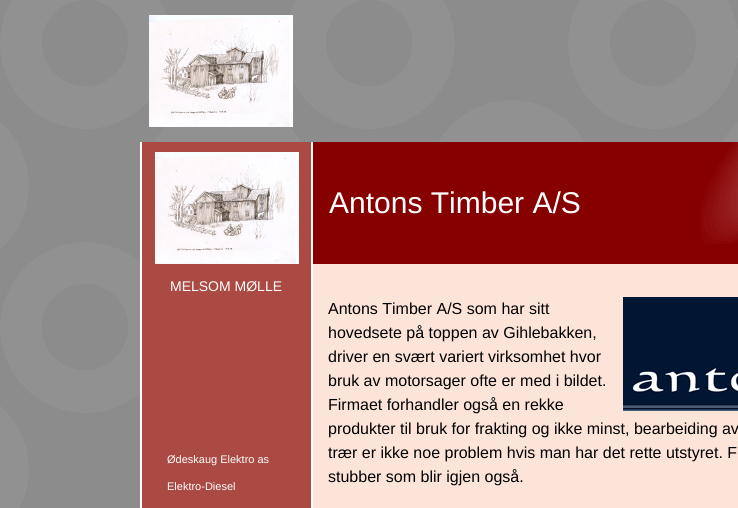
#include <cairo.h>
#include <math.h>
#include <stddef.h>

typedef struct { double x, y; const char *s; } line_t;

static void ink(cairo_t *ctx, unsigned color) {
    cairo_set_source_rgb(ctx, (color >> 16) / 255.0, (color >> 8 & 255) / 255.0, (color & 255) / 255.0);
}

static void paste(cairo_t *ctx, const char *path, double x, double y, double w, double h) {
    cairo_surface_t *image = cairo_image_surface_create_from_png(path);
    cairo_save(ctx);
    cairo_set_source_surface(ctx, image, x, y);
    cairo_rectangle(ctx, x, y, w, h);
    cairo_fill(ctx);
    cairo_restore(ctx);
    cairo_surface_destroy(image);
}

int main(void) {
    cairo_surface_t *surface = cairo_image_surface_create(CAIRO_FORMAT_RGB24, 738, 508);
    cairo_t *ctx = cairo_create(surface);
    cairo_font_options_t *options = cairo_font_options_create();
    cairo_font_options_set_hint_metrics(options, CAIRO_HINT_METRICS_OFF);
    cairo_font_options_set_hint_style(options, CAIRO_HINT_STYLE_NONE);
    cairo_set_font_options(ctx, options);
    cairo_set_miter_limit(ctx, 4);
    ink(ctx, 0x8C8C8C);
    cairo_paint(ctx);
    paste(ctx, "media/1.png", 0, 0, 738, 508);
    paste(ctx, "media/2.png", 149, 15, 144, 112);
    ink(ctx, 0xFFFFFF);
    cairo_rectangle(ctx, 140, 142, 173, 366);
    cairo_fill(ctx);
    ink(ctx, 0xAA4A42);
    cairo_rectangle(ctx, 142, 142, 169, 366);
    cairo_fill(ctx);
    paste(ctx, "media/2.png", 155, 152, 144, 112);
    cairo_select_font_face(ctx, "Liberation Sans", CAIRO_FONT_SLANT_NORMAL, CAIRO_FONT_WEIGHT_NORMAL);
    cairo_set_font_size(ctx, 14);
    ink(ctx, 0xFFFFFF);
    cairo_move_to(ctx, 170, 291);
    cairo_show_text(ctx, "MELSOM MØLLE");
    ink(ctx, 0xFCE4D9);
    cairo_rectangle(ctx, 313, 264, 425, 244);
    cairo_fill(ctx);
    ink(ctx, 0x870000);
    cairo_rectangle(ctx, 313, 142, 425, 122);
    cairo_fill(ctx);
    cairo_set_font_size(ctx, 30);
    ink(ctx, 0xFFFFFF);
    cairo_move_to(ctx, 329, 213);
    cairo_show_text(ctx, "Antons Timber A/S");
    paste(ctx, "media/3.png", 701, 142, 37, 102);
    paste(ctx, "media/4.png", 623, 297, 115, 114);
    cairo_set_font_size(ctx, 16);
    ink(ctx, 0x000000);
    {
        static const line_t items[] = {
            {328, 314, "Antons Timber A/S som har sitt"},
            {328, 338, "hovedsete på toppen av Gihlebakken,"},
            {328, 362, "driver en svært variert virksomhet hvor"},
            {328, 386, "bruk av motorsager ofte er med i bildet."},
            {328, 410, "Firmaet forhandler også en rekke"},
            {328, 434, "produkter til bruk for frakting og ikke minst, bearbeiding av"},
            {328, 458, "trær er ikke noe problem hvis man har det rette utstyret. F"},
            {328, 482, "stubber som blir igjen også."},
        };
        for (size_t i = 0; i < sizeof items / sizeof *items; i++) {
            cairo_move_to(ctx, items[i].x, items[i].y);
            cairo_show_text(ctx, items[i].s);
        }
    }
    cairo_set_font_size(ctx, 11);
    ink(ctx, 0xFFFFFF);
    cairo_move_to(ctx, 167, 463);
    cairo_show_text(ctx, "Ødeskaug Elektro as");
    cairo_move_to(ctx, 167, 490);
    cairo_show_text(ctx, "Elektro-Diesel");
    cairo_surface_write_to_png(surface, "image.png");
    cairo_font_options_destroy(options);
    cairo_destroy(ctx);
    cairo_surface_destroy(surface);
    return 0;
}
